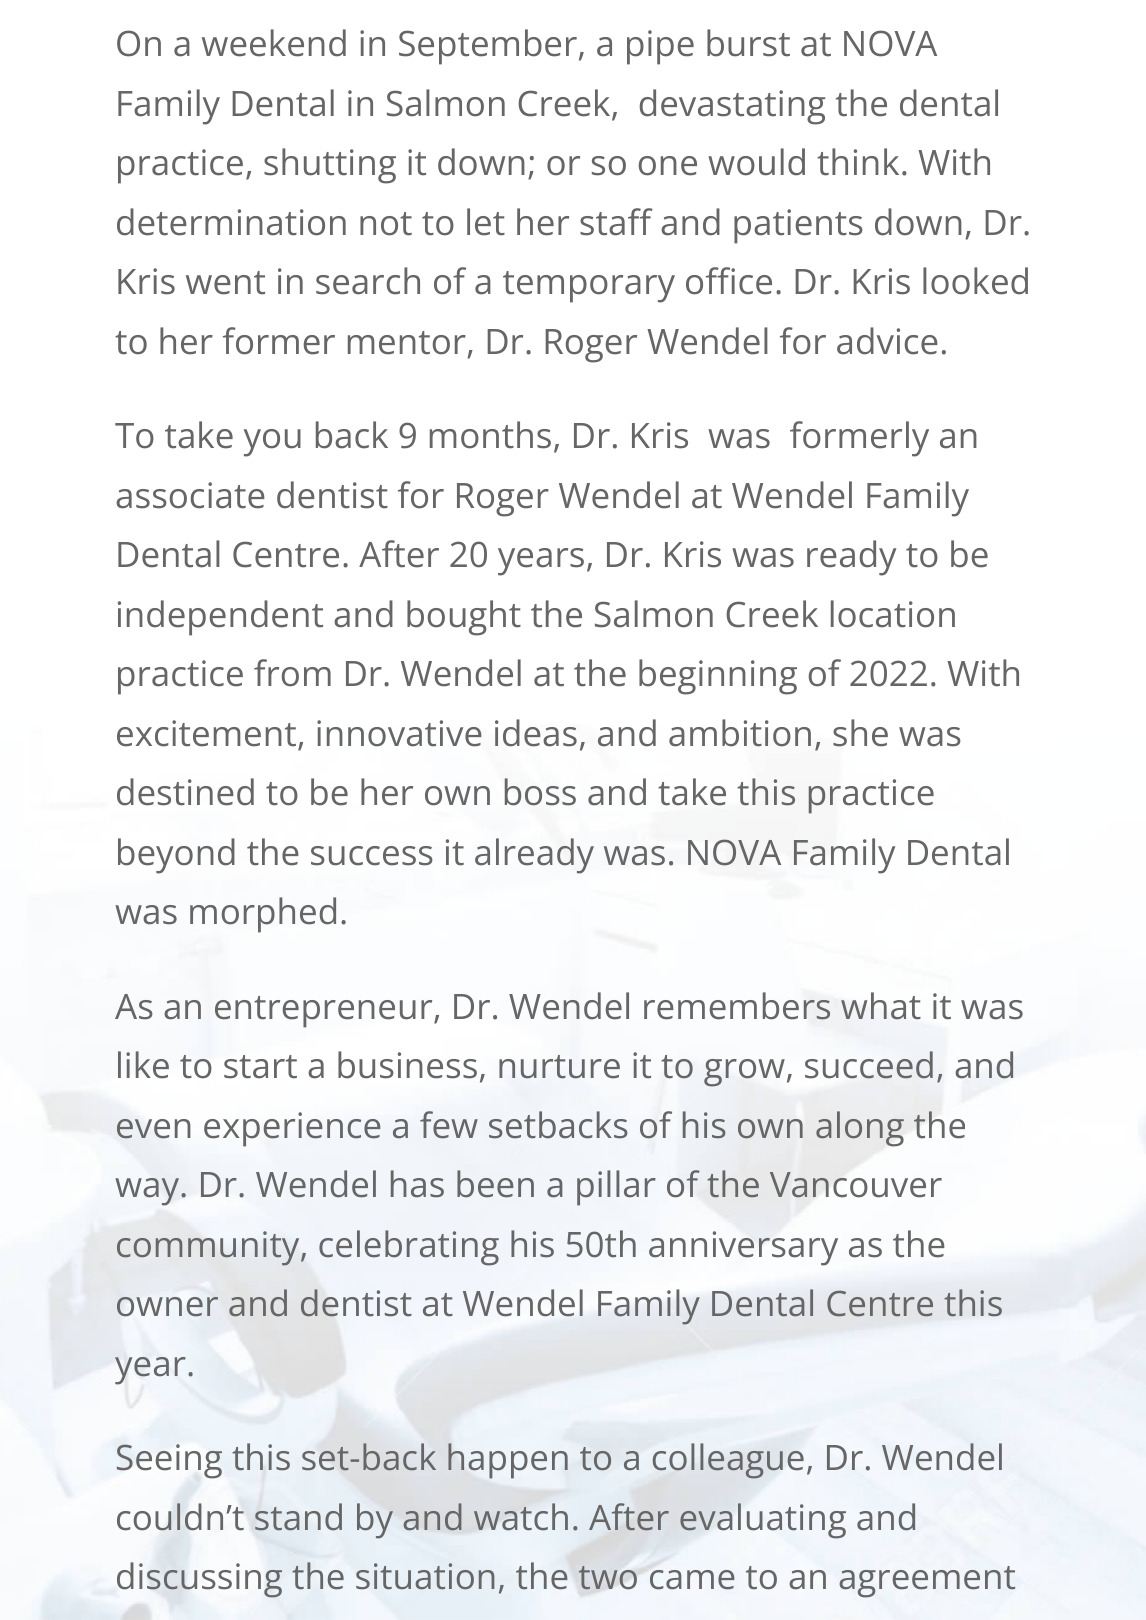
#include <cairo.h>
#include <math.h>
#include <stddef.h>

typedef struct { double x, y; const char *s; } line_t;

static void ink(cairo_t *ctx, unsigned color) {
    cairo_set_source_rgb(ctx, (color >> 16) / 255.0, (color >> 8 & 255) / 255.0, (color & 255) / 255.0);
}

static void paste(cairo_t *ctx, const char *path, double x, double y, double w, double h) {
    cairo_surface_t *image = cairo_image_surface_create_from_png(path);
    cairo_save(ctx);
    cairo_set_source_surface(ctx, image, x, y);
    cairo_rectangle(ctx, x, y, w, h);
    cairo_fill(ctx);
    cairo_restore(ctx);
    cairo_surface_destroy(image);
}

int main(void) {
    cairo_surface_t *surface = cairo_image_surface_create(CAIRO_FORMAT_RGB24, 1146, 1620);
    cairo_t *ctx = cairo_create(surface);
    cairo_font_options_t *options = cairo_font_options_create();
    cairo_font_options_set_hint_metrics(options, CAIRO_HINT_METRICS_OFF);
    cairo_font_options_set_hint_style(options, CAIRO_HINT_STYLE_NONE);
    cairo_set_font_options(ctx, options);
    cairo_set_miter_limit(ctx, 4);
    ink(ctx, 0xFFFFFF);
    cairo_paint(ctx);
    paste(ctx, "media/1.png", 0, 724, 1146, 896);
    cairo_select_font_face(ctx, "Open Sans", CAIRO_FONT_SLANT_NORMAL, CAIRO_FONT_WEIGHT_NORMAL);
    cairo_set_font_size(ctx, 35);
    ink(ctx, 0x666666);
    {
        static const line_t items[] = {
            {115, 56, "On a weekend in September, a pipe burst at NOVA"},
            {115, 116, "Family Dental in Salmon Creek,  devastating the dental"},
            {115, 175, "practice, shutting it down; or so one would think. With"},
            {115, 235, "determination not to let her staff and patients down, Dr."},
            {115, 294, "Kris went in search of a temporary office. Dr. Kris looked"},
            {115, 354, "to her former mentor, Dr. Roger Wendel for advice."},
            {115, 448, "To take you back 9 months, Dr. Kris  was  formerly an"},
            {115, 508, "associate dentist for Roger Wendel at Wendel Family"},
            {115, 567, "Dental Centre. After 20 years, Dr. Kris was ready to be"},
            {115, 627, "independent and bought the Salmon Creek location"},
            {115, 686, "practice from Dr. Wendel at the beginning of 2022. With"},
            {115, 746, "excitement, innovative ideas, and ambition, she was"},
            {115, 805, "destined to be her own boss and take this practice"},
            {115, 865, "beyond the success it already was. NOVA Family Dental"},
            {115, 924, "was morphed."},
            {115, 1019, "As an entrepreneur, Dr. Wendel remembers what it was"},
            {115, 1078, "like to start a business, nurture it to grow, succeed, and"},
            {115, 1138, "even experience a few setbacks of his own along the"},
            {115, 1197, "way. Dr. Wendel has been a pillar of the Vancouver"},
            {115, 1257, "community, celebrating his 50th anniversary as the"},
            {115, 1316, "owner and dentist at Wendel Family Dental Centre this"},
            {115, 1376, "year."},
            {115, 1470, "Seeing this set-back happen to a colleague, Dr. Wendel"},
            {115, 1530, "couldn’t stand by and watch. After evaluating and"},
            {115, 1589, "discussing the situation, the two came to an agreement"},
        };
        for (size_t i = 0; i < sizeof items / sizeof *items; i++) {
            cairo_move_to(ctx, items[i].x, items[i].y);
            cairo_show_text(ctx, items[i].s);
        }
    }
    cairo_surface_write_to_png(surface, "image.png");
    cairo_font_options_destroy(options);
    cairo_destroy(ctx);
    cairo_surface_destroy(surface);
    return 0;
}
